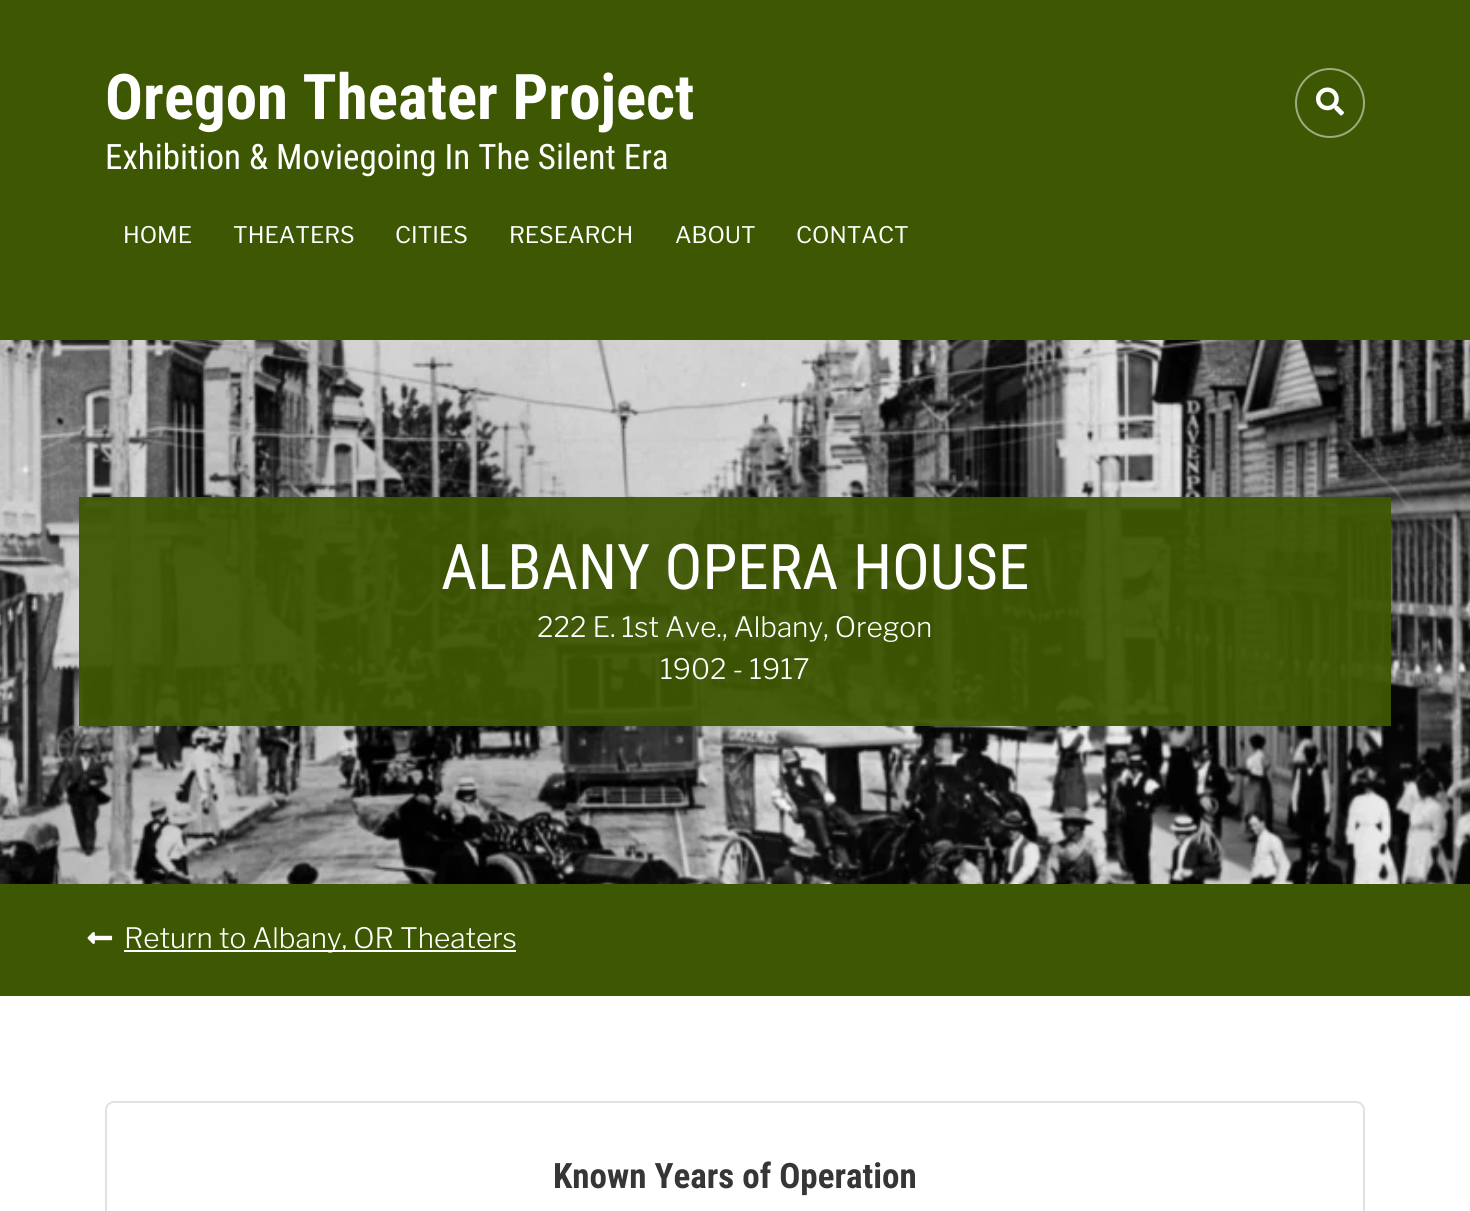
#include <cairo.h>
#include <math.h>
#include <stddef.h>

typedef struct { double x, y; const char *s; } line_t;

static void ink(cairo_t *ctx, unsigned color) {
    cairo_set_source_rgb(ctx, (color >> 16) / 255.0, (color >> 8 & 255) / 255.0, (color & 255) / 255.0);
}

static void round_path(cairo_t *ctx, double x, double y, double w, double h, double r) {
    cairo_new_sub_path(ctx);
    cairo_arc(ctx, x + w - r, y + h - r, r, 0, M_PI / 2);
    cairo_arc(ctx, x + r, y + h - r, r, M_PI / 2, M_PI);
    cairo_arc(ctx, x + r, y + r, r, M_PI, 1.5 * M_PI);
    cairo_arc(ctx, x + w - r, y + r, r, 1.5 * M_PI, 2 * M_PI);
    cairo_close_path(ctx);
}

static void paste(cairo_t *ctx, const char *path, double x, double y, double w, double h) {
    cairo_surface_t *image = cairo_image_surface_create_from_png(path);
    cairo_save(ctx);
    cairo_set_source_surface(ctx, image, x, y);
    cairo_rectangle(ctx, x, y, w, h);
    cairo_fill(ctx);
    cairo_restore(ctx);
    cairo_surface_destroy(image);
}

int main(void) {
    cairo_surface_t *surface = cairo_image_surface_create(CAIRO_FORMAT_RGB24, 1470, 1211);
    cairo_t *ctx = cairo_create(surface);
    cairo_font_options_t *options = cairo_font_options_create();
    cairo_font_options_set_hint_metrics(options, CAIRO_HINT_METRICS_OFF);
    cairo_font_options_set_hint_style(options, CAIRO_HINT_STYLE_NONE);
    cairo_set_font_options(ctx, options);
    cairo_set_miter_limit(ctx, 4);
    ink(ctx, 0xFFFFFF);
    cairo_paint(ctx);
    ink(ctx, 0x3E5702);
    cairo_rectangle(ctx, 0, 0, 1470, 340);
    cairo_fill(ctx);
    cairo_select_font_face(ctx, "Roboto Condensed", CAIRO_FONT_SLANT_NORMAL, CAIRO_FONT_WEIGHT_BOLD);
    cairo_set_font_size(ctx, 63);
    ink(ctx, 0xFFFFFF);
    cairo_move_to(ctx, 105, 119);
    cairo_show_text(ctx, "Oregon Theater Project");
    cairo_select_font_face(ctx, "Roboto Condensed", CAIRO_FONT_SLANT_NORMAL, CAIRO_FONT_WEIGHT_NORMAL);
    cairo_set_font_size(ctx, 35);
    cairo_move_to(ctx, 105, 169);
    cairo_show_text(ctx, "Exhibition & Moviegoing In The Silent Era");
    cairo_new_path(ctx);
    cairo_arc(ctx, 1330, 103, 34, 0, 2 * M_PI);
    ink(ctx, 0x9FAB81);
    cairo_stroke(ctx);
    paste(ctx, "media/1.png", 1316, 87, 28, 29);
    cairo_select_font_face(ctx, "Libre Franklin", CAIRO_FONT_SLANT_NORMAL, CAIRO_FONT_WEIGHT_NORMAL);
    cairo_set_font_size(ctx, 22.75);
    ink(ctx, 0xFFFFFF);
    {
        static const line_t items[] = {
            {123, 243, "HOME"},
            {233, 243, "THEATERS"},
            {395, 243, "CITIES"},
            {509, 243, "RESEARCH"},
            {675, 243, "ABOUT"},
            {796, 243, "CONTACT"},
        };
        for (size_t i = 0; i < sizeof items / sizeof *items; i++) {
            cairo_move_to(ctx, items[i].x, items[i].y);
            cairo_show_text(ctx, items[i].s);
        }
    }
    paste(ctx, "media/2.png", 0, 340, 1470, 544);
    cairo_set_source_rgba(ctx, 0.243, 0.341, 0.008, 0.94);
    cairo_rectangle(ctx, 79, 497, 1312, 229);
    cairo_fill(ctx);
    cairo_select_font_face(ctx, "Roboto Condensed", CAIRO_FONT_SLANT_NORMAL, CAIRO_FONT_WEIGHT_NORMAL);
    cairo_set_font_size(ctx, 63);
    ink(ctx, 0xFFFFFF);
    cairo_move_to(ctx, 441, 589);
    cairo_show_text(ctx, "ALBANY OPERA HOUSE");
    cairo_select_font_face(ctx, "Libre Franklin Light", CAIRO_FONT_SLANT_NORMAL, CAIRO_FONT_WEIGHT_NORMAL);
    cairo_set_font_size(ctx, 28);
    cairo_move_to(ctx, 537, 637);
    cairo_show_text(ctx, "222 E. 1st Ave., Albany, Oregon");
    cairo_move_to(ctx, 660, 679);
    cairo_show_text(ctx, "1902 - 1917");
    ink(ctx, 0x3E5702);
    cairo_rectangle(ctx, 0, 884, 1470, 112);
    cairo_fill(ctx);
    paste(ctx, "media/3.png", 87, 932, 26, 12);
    ink(ctx, 0xFFFFFF);
    cairo_rectangle(ctx, 124, 950, 392, 2);
    cairo_fill(ctx);
    cairo_move_to(ctx, 124, 948);
    cairo_show_text(ctx, "Return to Albany, OR Theaters");
    round_path(ctx, 106, 1102, 1258, 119, 8);
    ink(ctx, 0xE2E2E2);
    cairo_stroke(ctx);
    cairo_select_font_face(ctx, "Roboto Condensed", CAIRO_FONT_SLANT_NORMAL, CAIRO_FONT_WEIGHT_BOLD);
    cairo_set_font_size(ctx, 35);
    ink(ctx, 0x363636);
    cairo_move_to(ctx, 553, 1188);
    cairo_show_text(ctx, "Known Years of Operation");
    cairo_surface_write_to_png(surface, "image.png");
    cairo_font_options_destroy(options);
    cairo_destroy(ctx);
    cairo_surface_destroy(surface);
    return 0;
}
